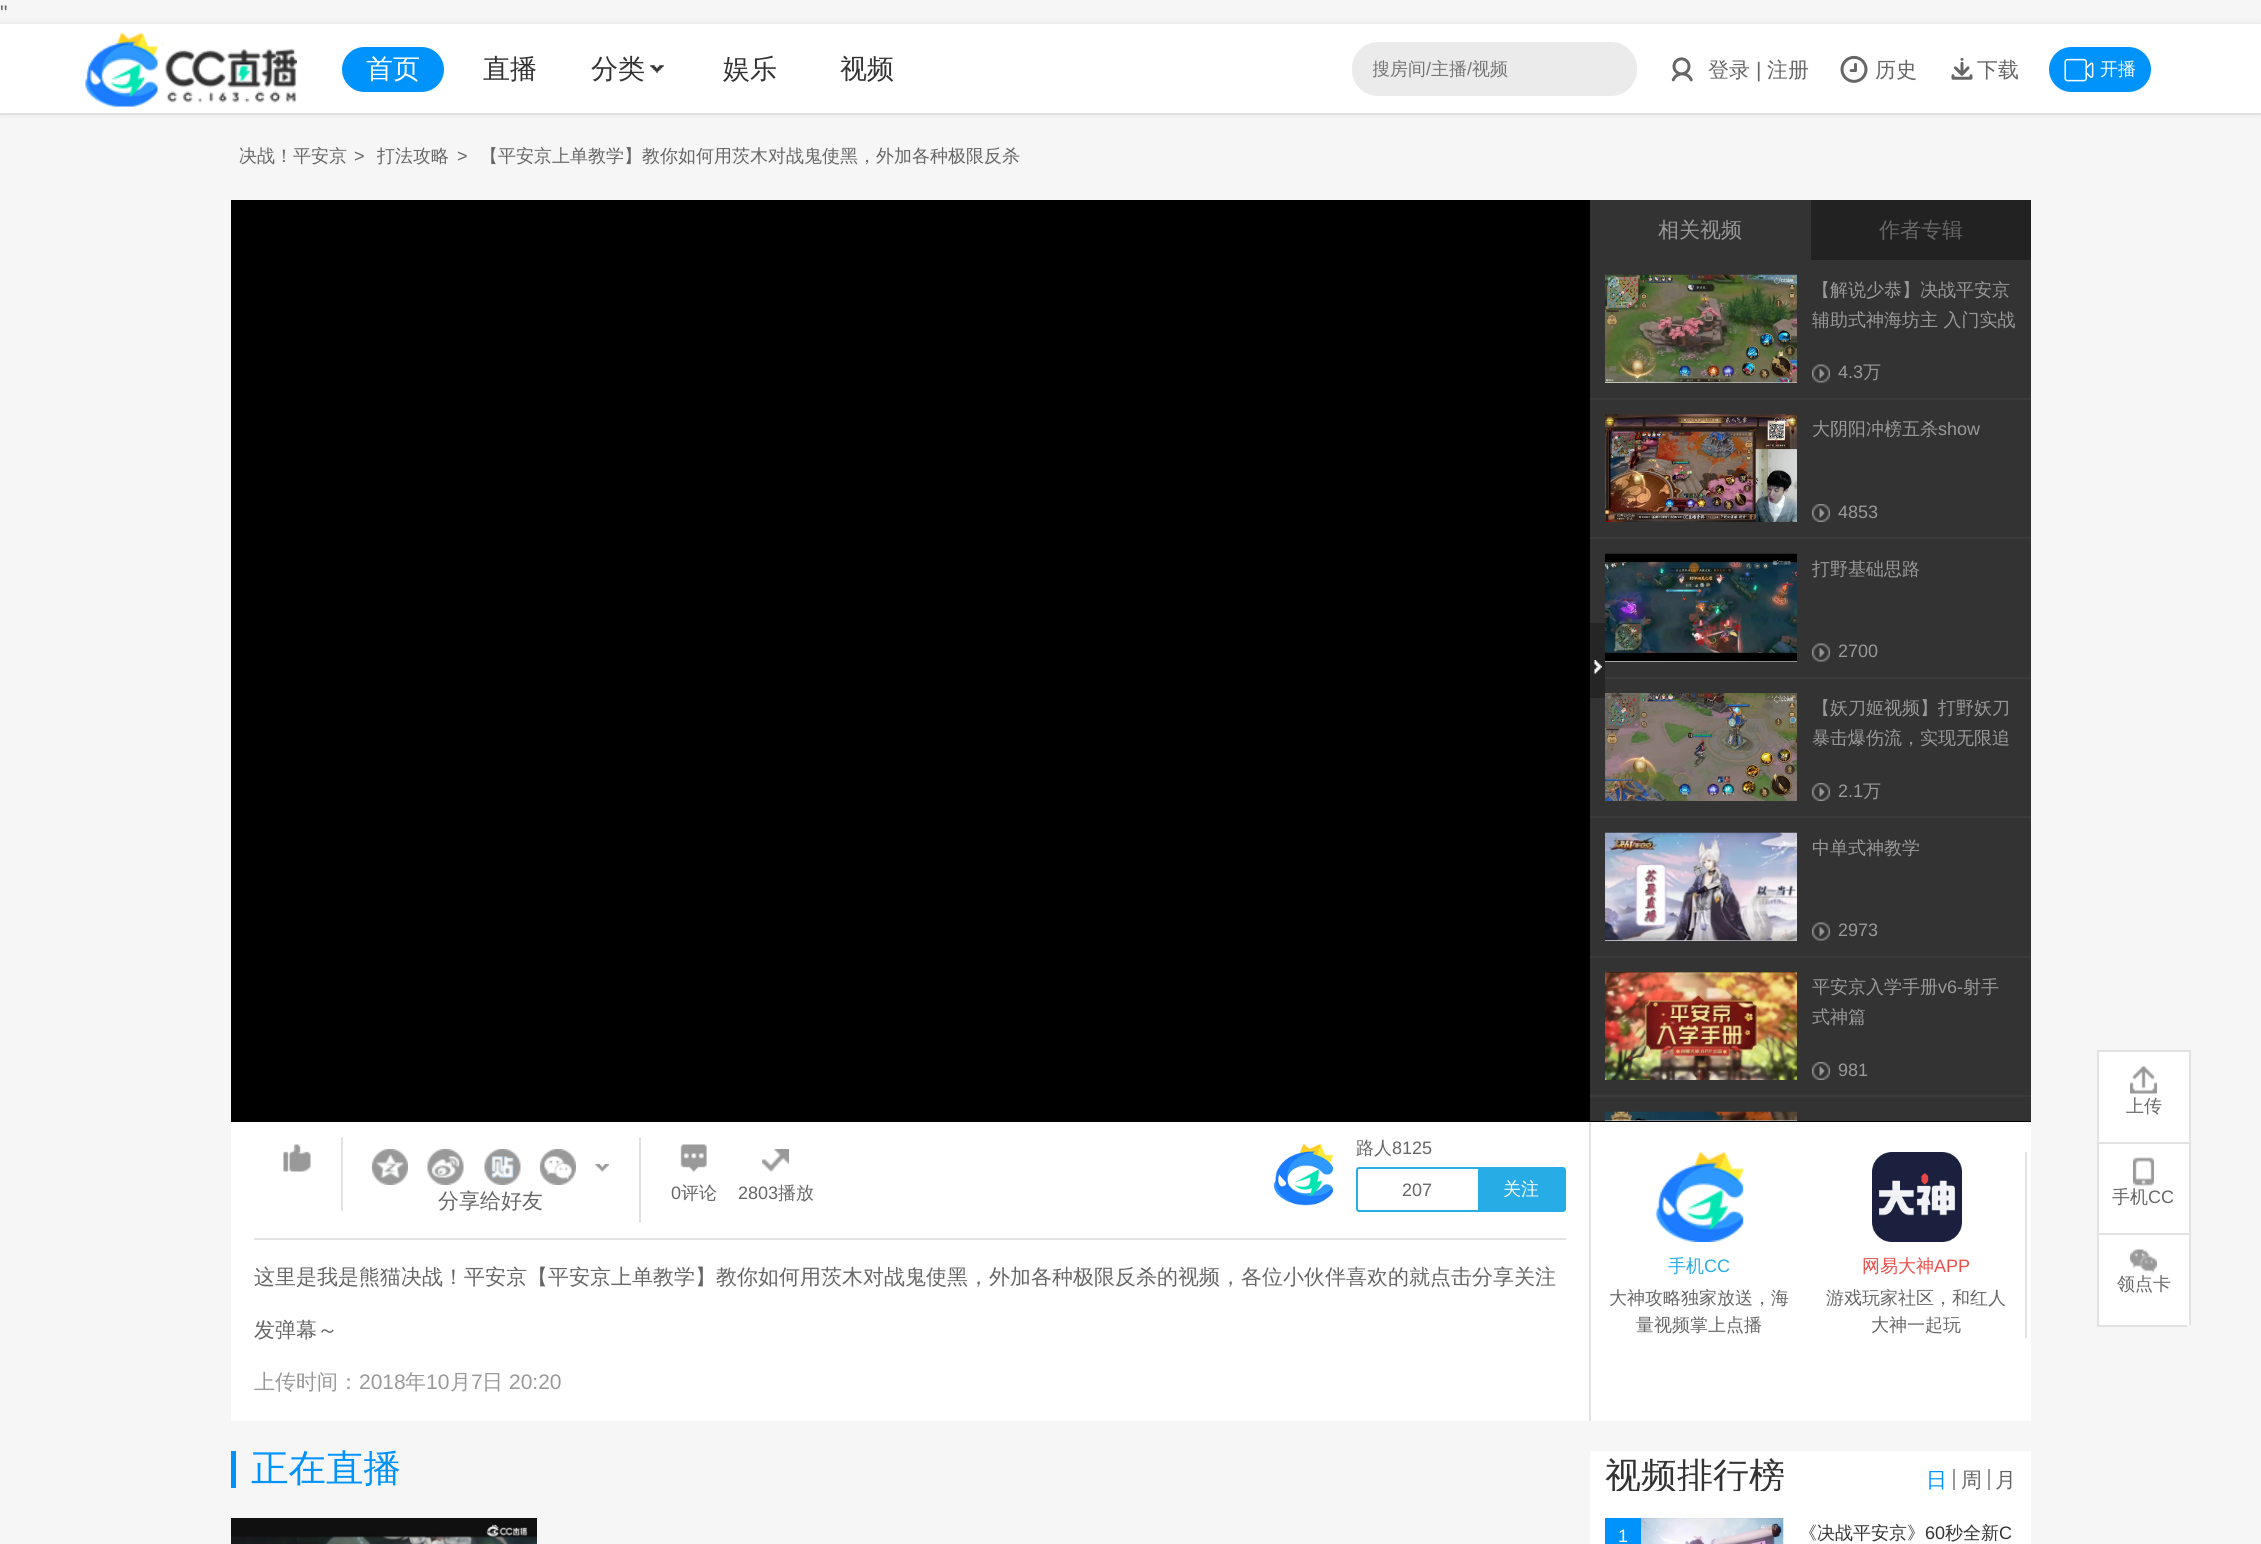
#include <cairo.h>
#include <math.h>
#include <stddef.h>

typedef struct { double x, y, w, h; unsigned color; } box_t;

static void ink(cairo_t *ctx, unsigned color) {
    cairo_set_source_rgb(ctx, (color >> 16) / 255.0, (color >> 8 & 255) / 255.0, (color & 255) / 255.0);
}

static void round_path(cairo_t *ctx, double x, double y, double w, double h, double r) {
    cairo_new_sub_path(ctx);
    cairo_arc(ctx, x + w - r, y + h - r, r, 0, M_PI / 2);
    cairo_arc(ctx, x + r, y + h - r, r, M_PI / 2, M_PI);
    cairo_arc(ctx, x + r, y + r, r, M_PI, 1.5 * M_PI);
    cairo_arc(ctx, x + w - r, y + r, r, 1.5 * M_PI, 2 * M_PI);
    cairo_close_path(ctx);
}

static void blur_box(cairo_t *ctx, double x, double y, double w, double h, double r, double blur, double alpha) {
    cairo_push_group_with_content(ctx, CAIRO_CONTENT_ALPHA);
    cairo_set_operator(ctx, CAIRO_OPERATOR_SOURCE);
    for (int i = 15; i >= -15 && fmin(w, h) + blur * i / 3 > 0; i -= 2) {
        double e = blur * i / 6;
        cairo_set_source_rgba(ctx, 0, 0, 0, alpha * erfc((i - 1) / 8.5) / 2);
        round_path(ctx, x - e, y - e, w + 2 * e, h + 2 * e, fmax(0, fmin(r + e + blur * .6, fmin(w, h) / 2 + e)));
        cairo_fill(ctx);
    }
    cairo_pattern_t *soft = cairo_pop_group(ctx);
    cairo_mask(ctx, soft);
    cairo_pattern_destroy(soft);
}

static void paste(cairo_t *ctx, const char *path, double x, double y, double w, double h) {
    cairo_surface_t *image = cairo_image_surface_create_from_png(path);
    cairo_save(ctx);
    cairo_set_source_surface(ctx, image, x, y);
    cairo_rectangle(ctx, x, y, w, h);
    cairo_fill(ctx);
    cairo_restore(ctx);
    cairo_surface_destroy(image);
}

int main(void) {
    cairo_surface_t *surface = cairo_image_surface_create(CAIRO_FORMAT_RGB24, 2261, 1544);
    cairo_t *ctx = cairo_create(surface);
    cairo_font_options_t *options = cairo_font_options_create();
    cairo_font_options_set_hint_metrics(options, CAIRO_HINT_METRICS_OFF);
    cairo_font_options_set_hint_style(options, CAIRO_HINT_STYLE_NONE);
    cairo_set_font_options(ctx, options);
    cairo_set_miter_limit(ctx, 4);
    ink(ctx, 0xF6F6F6);
    cairo_paint(ctx);
    cairo_select_font_face(ctx, "Liberation Sans", CAIRO_FONT_SLANT_NORMAL, CAIRO_FONT_WEIGHT_NORMAL);
    cairo_set_font_size(ctx, 21);
    ink(ctx, 0x666666);
    cairo_move_to(ctx, 0, 20);
    cairo_show_text(ctx, "\"");
    ink(ctx, 0x000000);
    blur_box(ctx, 0, 24, 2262, 90, 0, 3, 0.09);
    ink(ctx, 0xFFFFFF);
    cairo_rectangle(ctx, 0, 24, 2261, 89);
    cairo_fill(ctx);
    ink(ctx, 0xE2E1E2);
    cairo_rectangle(ctx, 0, 113, 2261, 2);
    cairo_fill(ctx);
    paste(ctx, "media/1.png", 85, 32, 212, 75);
    ink(ctx, 0x0093FB);
    round_path(ctx, 342, 47, 102, 45, 22.5);
    cairo_fill(ctx);
    cairo_select_font_face(ctx, "WenQuanYi Zen Hei Medium", CAIRO_FONT_SLANT_NORMAL, CAIRO_FONT_WEIGHT_NORMAL);
    cairo_set_font_size(ctx, 27);
    ink(ctx, 0xFFFFFF);
    cairo_move_to(ctx, 366, 78);
    cairo_show_text(ctx, "首页");
    ink(ctx, 0x333333);
    cairo_move_to(ctx, 483, 78);
    cairo_show_text(ctx, "直播");
    cairo_move_to(ctx, 591, 78);
    cairo_show_text(ctx, "分类");
    paste(ctx, "media/2.png", 650, 65, 14, 8);
    cairo_move_to(ctx, 723, 78);
    cairo_show_text(ctx, "娱乐");
    cairo_move_to(ctx, 840, 78);
    cairo_show_text(ctx, "视频");
    ink(ctx, 0xECEBEB);
    round_path(ctx, 1353, 43, 283, 52, 25);
    cairo_fill_preserve(ctx);
    cairo_stroke(ctx);
    cairo_save(ctx);
    cairo_rectangle(ctx, 1373, 57, 210, 26);
    cairo_clip(ctx);
    cairo_set_font_size(ctx, 18);
    ink(ctx, 0x757575);
    cairo_move_to(ctx, 1372, 75);
    cairo_show_text(ctx, "搜房间");
    cairo_restore(ctx);
    cairo_select_font_face(ctx, "Liberation Sans", CAIRO_FONT_SLANT_NORMAL, CAIRO_FONT_WEIGHT_NORMAL);
    cairo_set_font_size(ctx, 18);
    ink(ctx, 0x757575);
    cairo_move_to(ctx, 1426, 75);
    cairo_show_text(ctx, "/");
    cairo_select_font_face(ctx, "WenQuanYi Zen Hei Medium", CAIRO_FONT_SLANT_NORMAL, CAIRO_FONT_WEIGHT_NORMAL);
    cairo_move_to(ctx, 1431, 75);
    cairo_show_text(ctx, "主播");
    cairo_select_font_face(ctx, "Liberation Sans", CAIRO_FONT_SLANT_NORMAL, CAIRO_FONT_WEIGHT_NORMAL);
    cairo_move_to(ctx, 1467, 75);
    cairo_show_text(ctx, "/");
    cairo_select_font_face(ctx, "WenQuanYi Zen Hei Medium", CAIRO_FONT_SLANT_NORMAL, CAIRO_FONT_WEIGHT_NORMAL);
    cairo_move_to(ctx, 1472, 75);
    cairo_show_text(ctx, "视频");
    paste(ctx, "media/3.png", 1671, 57, 22, 25);
    cairo_set_font_size(ctx, 21);
    ink(ctx, 0x666666);
    cairo_move_to(ctx, 1708, 77);
    cairo_show_text(ctx, "登录");
    cairo_select_font_face(ctx, "Liberation Sans", CAIRO_FONT_SLANT_NORMAL, CAIRO_FONT_WEIGHT_NORMAL);
    cairo_move_to(ctx, 1756, 77);
    cairo_show_text(ctx, "|");
    cairo_select_font_face(ctx, "WenQuanYi Zen Hei Medium", CAIRO_FONT_SLANT_NORMAL, CAIRO_FONT_WEIGHT_NORMAL);
    cairo_move_to(ctx, 1767, 77);
    cairo_show_text(ctx, "注册");
    paste(ctx, "media/4.png", 1840, 55, 28, 28);
    cairo_move_to(ctx, 1875, 77);
    cairo_show_text(ctx, "历史");
    paste(ctx, "media/5.png", 1951, 57, 22, 23);
    cairo_move_to(ctx, 1977, 77);
    cairo_show_text(ctx, "下载");
    ink(ctx, 0x0093FB);
    round_path(ctx, 2049, 47, 102, 45, 22.5);
    cairo_fill(ctx);
    paste(ctx, "media/6.png", 2064, 58, 30, 24);
    cairo_set_font_size(ctx, 18);
    ink(ctx, 0xFFFFFF);
    cairo_move_to(ctx, 2100, 75);
    cairo_show_text(ctx, "开播");
    ink(ctx, 0x666666);
    cairo_move_to(ctx, 239, 162);
    cairo_show_text(ctx, "决战！平安京");
    cairo_select_font_face(ctx, "Liberation Sans", CAIRO_FONT_SLANT_NORMAL, CAIRO_FONT_WEIGHT_NORMAL);
    cairo_move_to(ctx, 354, 162);
    cairo_show_text(ctx, ">");
    cairo_select_font_face(ctx, "WenQuanYi Zen Hei Medium", CAIRO_FONT_SLANT_NORMAL, CAIRO_FONT_WEIGHT_NORMAL);
    cairo_move_to(ctx, 377, 162);
    cairo_show_text(ctx, "打法攻略");
    cairo_select_font_face(ctx, "Liberation Sans", CAIRO_FONT_SLANT_NORMAL, CAIRO_FONT_WEIGHT_NORMAL);
    cairo_move_to(ctx, 457, 162);
    cairo_show_text(ctx, ">");
    cairo_select_font_face(ctx, "WenQuanYi Zen Hei Medium", CAIRO_FONT_SLANT_NORMAL, CAIRO_FONT_WEIGHT_NORMAL);
    cairo_move_to(ctx, 480, 162);
    cairo_show_text(ctx, "【平安京上单教学】教你如何用茨木对战鬼使黑，外加各种极限反杀");
    ink(ctx, 0x000000);
    cairo_rectangle(ctx, 231, 200, 1800, 922);
    cairo_fill(ctx);
    ink(ctx, 0x333333);
    cairo_rectangle(ctx, 1590, 200, 441, 921);
    cairo_fill(ctx);
    cairo_set_font_size(ctx, 21);
    ink(ctx, 0x999999);
    cairo_move_to(ctx, 1658, 237);
    cairo_show_text(ctx, "相关视频");
    ink(ctx, 0x222222);
    cairo_rectangle(ctx, 1811, 200, 220, 60);
    cairo_fill(ctx);
    ink(ctx, 0x666666);
    cairo_move_to(ctx, 1879, 237);
    cairo_show_text(ctx, "作者专辑");
    ink(ctx, 0x252525);
    cairo_rectangle(ctx, 1590, 623, 15, 75);
    cairo_fill(ctx);
    paste(ctx, "media/7.png", 1594, 660, 8, 14);
    ink(ctx, 0x3B3B3B);
    cairo_rectangle(ctx, 1590, 398, 441, 2);
    cairo_fill(ctx);
    ink(ctx, 0xE0E0E0);
    cairo_rectangle(ctx, 1605, 382, 192, 1);
    cairo_fill(ctx);
    paste(ctx, "media/8.png", 1633, 382, 164, 1);
    paste(ctx, "media/9.png", 1605, 274, 192, 109);
    cairo_set_font_size(ctx, 18);
    ink(ctx, 0x999999);
    cairo_move_to(ctx, 1812, 296);
    cairo_show_text(ctx, "【解说少恭】决战平安京");
    cairo_move_to(ctx, 1812, 326);
    cairo_show_text(ctx, "辅助式神海坊主 入门实战");
    paste(ctx, "media/10.png", 1812, 364, 18, 19);
    cairo_select_font_face(ctx, "Liberation Sans", CAIRO_FONT_SLANT_NORMAL, CAIRO_FONT_WEIGHT_NORMAL);
    cairo_move_to(ctx, 1838, 378);
    cairo_show_text(ctx, "4.3");
    cairo_select_font_face(ctx, "WenQuanYi Zen Hei Medium", CAIRO_FONT_SLANT_NORMAL, CAIRO_FONT_WEIGHT_NORMAL);
    cairo_move_to(ctx, 1863, 378);
    cairo_show_text(ctx, "万");
    ink(ctx, 0x3B3B3B);
    cairo_rectangle(ctx, 1590, 537, 441, 2);
    cairo_fill(ctx);
    paste(ctx, "media/11.png", 1605, 414, 192, 108);
    ink(ctx, 0x999999);
    cairo_move_to(ctx, 1812, 435);
    cairo_show_text(ctx, "大阴阳冲榜五杀");
    cairo_select_font_face(ctx, "Liberation Sans", CAIRO_FONT_SLANT_NORMAL, CAIRO_FONT_WEIGHT_NORMAL);
    cairo_move_to(ctx, 1938, 435);
    cairo_show_text(ctx, "show");
    paste(ctx, "media/12.png", 1812, 504, 18, 18);
    cairo_move_to(ctx, 1838, 518);
    cairo_show_text(ctx, "4853");
    ink(ctx, 0x3B3B3B);
    cairo_rectangle(ctx, 1605, 677, 426, 2);
    cairo_fill(ctx);
    ink(ctx, 0xE0E0E0);
    cairo_rectangle(ctx, 1605, 661, 192, 1);
    cairo_fill(ctx);
    paste(ctx, "media/8.png", 1633, 661, 164, 1);
    paste(ctx, "media/13.png", 1605, 553, 192, 109);
    cairo_select_font_face(ctx, "WenQuanYi Zen Hei Medium", CAIRO_FONT_SLANT_NORMAL, CAIRO_FONT_WEIGHT_NORMAL);
    ink(ctx, 0x999999);
    cairo_move_to(ctx, 1812, 575);
    cairo_show_text(ctx, "打野基础思路");
    paste(ctx, "media/10.png", 1812, 643, 18, 19);
    cairo_select_font_face(ctx, "Liberation Sans", CAIRO_FONT_SLANT_NORMAL, CAIRO_FONT_WEIGHT_NORMAL);
    cairo_move_to(ctx, 1838, 657);
    cairo_show_text(ctx, "2700");
    ink(ctx, 0x3B3B3B);
    cairo_rectangle(ctx, 1590, 816, 441, 2);
    cairo_fill(ctx);
    paste(ctx, "media/14.png", 1605, 693, 192, 108);
    cairo_select_font_face(ctx, "WenQuanYi Zen Hei Medium", CAIRO_FONT_SLANT_NORMAL, CAIRO_FONT_WEIGHT_NORMAL);
    ink(ctx, 0x999999);
    cairo_move_to(ctx, 1812, 714);
    cairo_show_text(ctx, "【妖刀姬视频】打野妖刀");
    cairo_move_to(ctx, 1812, 744);
    cairo_show_text(ctx, "暴击爆伤流，实现无限追");
    paste(ctx, "media/12.png", 1812, 783, 18, 18);
    cairo_select_font_face(ctx, "Liberation Sans", CAIRO_FONT_SLANT_NORMAL, CAIRO_FONT_WEIGHT_NORMAL);
    cairo_move_to(ctx, 1838, 797);
    cairo_show_text(ctx, "2.1");
    cairo_select_font_face(ctx, "WenQuanYi Zen Hei Medium", CAIRO_FONT_SLANT_NORMAL, CAIRO_FONT_WEIGHT_NORMAL);
    cairo_move_to(ctx, 1863, 797);
    cairo_show_text(ctx, "万");
    ink(ctx, 0x3B3B3B);
    cairo_rectangle(ctx, 1590, 956, 441, 2);
    cairo_fill(ctx);
    ink(ctx, 0xE0E0E0);
    cairo_rectangle(ctx, 1605, 940, 192, 1);
    cairo_fill(ctx);
    paste(ctx, "media/8.png", 1633, 940, 164, 1);
    paste(ctx, "media/15.png", 1605, 832, 192, 109);
    ink(ctx, 0x999999);
    cairo_move_to(ctx, 1812, 854);
    cairo_show_text(ctx, "中单式神教学");
    paste(ctx, "media/10.png", 1812, 922, 18, 19);
    cairo_select_font_face(ctx, "Liberation Sans", CAIRO_FONT_SLANT_NORMAL, CAIRO_FONT_WEIGHT_NORMAL);
    cairo_move_to(ctx, 1838, 936);
    cairo_show_text(ctx, "2973");
    ink(ctx, 0x3B3B3B);
    cairo_rectangle(ctx, 1590, 1095, 441, 2);
    cairo_fill(ctx);
    paste(ctx, "media/16.png", 1605, 972, 192, 108);
    cairo_select_font_face(ctx, "WenQuanYi Zen Hei Medium", CAIRO_FONT_SLANT_NORMAL, CAIRO_FONT_WEIGHT_NORMAL);
    ink(ctx, 0x999999);
    cairo_move_to(ctx, 1812, 993);
    cairo_show_text(ctx, "平安京入学手册");
    cairo_select_font_face(ctx, "Liberation Sans", CAIRO_FONT_SLANT_NORMAL, CAIRO_FONT_WEIGHT_NORMAL);
    cairo_move_to(ctx, 1938, 993);
    cairo_show_text(ctx, "v6-");
    cairo_select_font_face(ctx, "WenQuanYi Zen Hei Medium", CAIRO_FONT_SLANT_NORMAL, CAIRO_FONT_WEIGHT_NORMAL);
    cairo_move_to(ctx, 1963, 993);
    cairo_show_text(ctx, "射手");
    cairo_move_to(ctx, 1812, 1023);
    cairo_show_text(ctx, "式神篇");
    paste(ctx, "media/12.png", 1812, 1062, 18, 18);
    cairo_select_font_face(ctx, "Liberation Sans", CAIRO_FONT_SLANT_NORMAL, CAIRO_FONT_WEIGHT_NORMAL);
    cairo_move_to(ctx, 1838, 1076);
    cairo_show_text(ctx, "981");
    ink(ctx, 0xE0E0E0);
    cairo_rectangle(ctx, 1605, 1120, 192, 1);
    cairo_fill(ctx);
    paste(ctx, "media/17.png", 1605, 1111, 192, 10);
    {
        static const box_t items[] = {
            {231, 1122, 1800, 299, 0xFFFFFF},
            {1589, 1122, 2, 299, 0xE2E2E2},
            {254, 1238, 1312, 2, 0xE2E2E2},
            {341, 1137, 2, 74, 0xE2E2E2},
        };
        for (size_t i = 0; i < sizeof items / sizeof *items; i++) {
            ink(ctx, items[i].color);
            cairo_rectangle(ctx, items[i].x, items[i].y, items[i].w, items[i].h);
            cairo_fill(ctx);
        }
    }
    paste(ctx, "media/18.png", 283, 1144, 28, 28);
    cairo_rectangle(ctx, 639, 1137, 2, 86);
    cairo_fill(ctx);
    paste(ctx, "media/19.png", 372, 1149, 36, 36);
    paste(ctx, "media/20.png", 427, 1149, 37, 36);
    paste(ctx, "media/21.png", 484, 1149, 37, 36);
    paste(ctx, "media/22.png", 540, 1149, 36, 36);
    paste(ctx, "media/23.png", 595, 1164, 14, 8);
    cairo_select_font_face(ctx, "WenQuanYi Zen Hei Medium", CAIRO_FONT_SLANT_NORMAL, CAIRO_FONT_WEIGHT_NORMAL);
    cairo_set_font_size(ctx, 21);
    ink(ctx, 0x666666);
    cairo_move_to(ctx, 438, 1208);
    cairo_show_text(ctx, "分享给好友");
    paste(ctx, "media/24.png", 680, 1144, 27, 28);
    cairo_select_font_face(ctx, "Liberation Sans", CAIRO_FONT_SLANT_NORMAL, CAIRO_FONT_WEIGHT_NORMAL);
    cairo_set_font_size(ctx, 18);
    cairo_move_to(ctx, 671, 1199);
    cairo_show_text(ctx, "0");
    cairo_select_font_face(ctx, "WenQuanYi Zen Hei Medium", CAIRO_FONT_SLANT_NORMAL, CAIRO_FONT_WEIGHT_NORMAL);
    cairo_move_to(ctx, 681, 1199);
    cairo_show_text(ctx, "评论");
    paste(ctx, "media/25.png", 762, 1149, 27, 23);
    cairo_select_font_face(ctx, "Liberation Sans", CAIRO_FONT_SLANT_NORMAL, CAIRO_FONT_WEIGHT_NORMAL);
    cairo_move_to(ctx, 738, 1199);
    cairo_show_text(ctx, "2803");
    cairo_select_font_face(ctx, "WenQuanYi Zen Hei Medium", CAIRO_FONT_SLANT_NORMAL, CAIRO_FONT_WEIGHT_NORMAL);
    cairo_move_to(ctx, 778, 1199);
    cairo_show_text(ctx, "播放");
    paste(ctx, "media/26.png", 1273, 1143, 61, 63);
    cairo_move_to(ctx, 1356, 1154);
    cairo_show_text(ctx, "路人");
    cairo_select_font_face(ctx, "Liberation Sans", CAIRO_FONT_SLANT_NORMAL, CAIRO_FONT_WEIGHT_NORMAL);
    cairo_move_to(ctx, 1392, 1154);
    cairo_show_text(ctx, "8125");
    round_path(ctx, 1357, 1168, 208, 43, 2);
    ink(ctx, 0x27ACE5);
    cairo_stroke(ctx);
    ink(ctx, 0x666666);
    cairo_move_to(ctx, 1402, 1196);
    cairo_show_text(ctx, "207");
    ink(ctx, 0x27ACE5);
    cairo_rectangle(ctx, 1478, 1169, 86, 41);
    cairo_fill(ctx);
    cairo_select_font_face(ctx, "WenQuanYi Zen Hei Medium", CAIRO_FONT_SLANT_NORMAL, CAIRO_FONT_WEIGHT_NORMAL);
    ink(ctx, 0xFFFFFF);
    cairo_move_to(ctx, 1503, 1195);
    cairo_show_text(ctx, "关注");
    cairo_set_font_size(ctx, 21);
    ink(ctx, 0x666666);
    cairo_move_to(ctx, 254, 1284);
    cairo_show_text(ctx, "这里是我是熊猫决战！平安京【平安京上单教学】教你如何用茨木对战鬼使黑，外加各种极限反杀的视频，各位小伙伴喜欢的就点击分享关注");
    cairo_move_to(ctx, 254, 1337);
    cairo_show_text(ctx, "发弹幕～");
    ink(ctx, 0x999999);
    cairo_move_to(ctx, 254, 1389);
    cairo_show_text(ctx, "上传时间：");
    cairo_select_font_face(ctx, "Liberation Sans", CAIRO_FONT_SLANT_NORMAL, CAIRO_FONT_WEIGHT_NORMAL);
    cairo_move_to(ctx, 359, 1389);
    cairo_show_text(ctx, "2018");
    cairo_select_font_face(ctx, "WenQuanYi Zen Hei Medium", CAIRO_FONT_SLANT_NORMAL, CAIRO_FONT_WEIGHT_NORMAL);
    cairo_move_to(ctx, 405, 1389);
    cairo_show_text(ctx, "年");
    cairo_select_font_face(ctx, "Liberation Sans", CAIRO_FONT_SLANT_NORMAL, CAIRO_FONT_WEIGHT_NORMAL);
    cairo_move_to(ctx, 426, 1389);
    cairo_show_text(ctx, "10");
    cairo_select_font_face(ctx, "WenQuanYi Zen Hei Medium", CAIRO_FONT_SLANT_NORMAL, CAIRO_FONT_WEIGHT_NORMAL);
    cairo_move_to(ctx, 450, 1389);
    cairo_show_text(ctx, "月");
    cairo_select_font_face(ctx, "Liberation Sans", CAIRO_FONT_SLANT_NORMAL, CAIRO_FONT_WEIGHT_NORMAL);
    cairo_move_to(ctx, 471, 1389);
    cairo_show_text(ctx, "7");
    cairo_select_font_face(ctx, "WenQuanYi Zen Hei Medium", CAIRO_FONT_SLANT_NORMAL, CAIRO_FONT_WEIGHT_NORMAL);
    cairo_move_to(ctx, 482, 1389);
    cairo_show_text(ctx, "日");
    cairo_select_font_face(ctx, "Liberation Sans", CAIRO_FONT_SLANT_NORMAL, CAIRO_FONT_WEIGHT_NORMAL);
    cairo_move_to(ctx, 509, 1389);
    cairo_show_text(ctx, "20:20");
    paste(ctx, "media/27.png", 1655, 1152, 89, 90);
    cairo_select_font_face(ctx, "WenQuanYi Zen Hei Medium", CAIRO_FONT_SLANT_NORMAL, CAIRO_FONT_WEIGHT_NORMAL);
    cairo_set_font_size(ctx, 18);
    ink(ctx, 0x27ACE5);
    cairo_move_to(ctx, 1668, 1272);
    cairo_show_text(ctx, "手机");
    cairo_select_font_face(ctx, "Liberation Sans", CAIRO_FONT_SLANT_NORMAL, CAIRO_FONT_WEIGHT_NORMAL);
    cairo_move_to(ctx, 1704, 1272);
    cairo_show_text(ctx, "CC");
    cairo_select_font_face(ctx, "WenQuanYi Zen Hei Medium", CAIRO_FONT_SLANT_NORMAL, CAIRO_FONT_WEIGHT_NORMAL);
    ink(ctx, 0x666666);
    cairo_move_to(ctx, 1609, 1304);
    cairo_show_text(ctx, "大神攻略独家放送，海");
    cairo_move_to(ctx, 1636, 1331);
    cairo_show_text(ctx, "量视频掌上点播");
    ink(ctx, 0xE2E2E2);
    cairo_rectangle(ctx, 2025, 1152, 2, 186);
    cairo_fill(ctx);
    paste(ctx, "media/28.png", 1872, 1152, 90, 90);
    ink(ctx, 0xEC4E4A);
    cairo_move_to(ctx, 1862, 1272);
    cairo_show_text(ctx, "网易大神");
    cairo_select_font_face(ctx, "Liberation Sans", CAIRO_FONT_SLANT_NORMAL, CAIRO_FONT_WEIGHT_NORMAL);
    cairo_move_to(ctx, 1934, 1272);
    cairo_show_text(ctx, "APP");
    cairo_select_font_face(ctx, "WenQuanYi Zen Hei Medium", CAIRO_FONT_SLANT_NORMAL, CAIRO_FONT_WEIGHT_NORMAL);
    ink(ctx, 0x666666);
    cairo_move_to(ctx, 1826, 1304);
    cairo_show_text(ctx, "游戏玩家社区，和红人");
    cairo_move_to(ctx, 1871, 1331);
    cairo_show_text(ctx, "大神一起玩");
    ink(ctx, 0x0093FB);
    cairo_rectangle(ctx, 231, 1451, 5, 37);
    cairo_fill(ctx);
    cairo_set_font_size(ctx, 37.5);
    cairo_move_to(ctx, 251, 1481);
    cairo_show_text(ctx, "正在直播");
    paste(ctx, "media/29.png", 231, 1518, 306, 26);
    ink(ctx, 0xFFFFFF);
    cairo_rectangle(ctx, 1590, 1451, 441, 93);
    cairo_fill(ctx);
    cairo_set_font_size(ctx, 36);
    ink(ctx, 0x333333);
    cairo_move_to(ctx, 1605, 1488);
    cairo_show_text(ctx, "视频排行榜");
    cairo_set_font_size(ctx, 21);
    ink(ctx, 0x0093FB);
    cairo_move_to(ctx, 1926, 1487);
    cairo_show_text(ctx, "日");
    ink(ctx, 0x999999);
    cairo_rectangle(ctx, 1953, 1469, 2, 21);
    cairo_fill(ctx);
    ink(ctx, 0x666666);
    cairo_move_to(ctx, 1961, 1487);
    cairo_show_text(ctx, "周");
    ink(ctx, 0x999999);
    cairo_rectangle(ctx, 1988, 1469, 2, 21);
    cairo_fill(ctx);
    ink(ctx, 0x666666);
    cairo_move_to(ctx, 1995, 1487);
    cairo_show_text(ctx, "月");
    ink(ctx, 0xFFFFFF);
    cairo_rectangle(ctx, 1612, 1491, 166, 3);
    cairo_fill(ctx);
    ink(ctx, 0x0093FB);
    cairo_rectangle(ctx, 1605, 1518, 36, 26);
    cairo_fill(ctx);
    cairo_select_font_face(ctx, "Liberation Sans", CAIRO_FONT_SLANT_NORMAL, CAIRO_FONT_WEIGHT_NORMAL);
    cairo_set_font_size(ctx, 18);
    ink(ctx, 0xFFFFFF);
    cairo_move_to(ctx, 1618, 1542);
    cairo_show_text(ctx, "1");
    paste(ctx, "media/30.png", 1641, 1518, 143, 26);
    cairo_select_font_face(ctx, "WenQuanYi Zen Hei Medium", CAIRO_FONT_SLANT_NORMAL, CAIRO_FONT_WEIGHT_NORMAL);
    ink(ctx, 0x333333);
    cairo_move_to(ctx, 1799, 1539);
    cairo_show_text(ctx, "《决战平安京》");
    cairo_select_font_face(ctx, "Liberation Sans", CAIRO_FONT_SLANT_NORMAL, CAIRO_FONT_WEIGHT_NORMAL);
    cairo_move_to(ctx, 1925, 1539);
    cairo_show_text(ctx, "60");
    cairo_select_font_face(ctx, "WenQuanYi Zen Hei Medium", CAIRO_FONT_SLANT_NORMAL, CAIRO_FONT_WEIGHT_NORMAL);
    cairo_move_to(ctx, 1945, 1539);
    cairo_show_text(ctx, "秒全新");
    cairo_select_font_face(ctx, "Liberation Sans", CAIRO_FONT_SLANT_NORMAL, CAIRO_FONT_WEIGHT_NORMAL);
    cairo_move_to(ctx, 1999, 1539);
    cairo_show_text(ctx, "C");
    {
        static const box_t items[] = {
            {2097, 1325, 90, 2, 0xE2E2E2},
            {2099, 1052, 90, 90, 0xFFFFFF},
            {2097, 1050, 93, 2, 0xE2E2E2},
            {2189, 1050, 2, 92, 0xE2E2E2},
            {2097, 1050, 2, 92, 0xE2E2E2},
        };
        for (size_t i = 0; i < sizeof items / sizeof *items; i++) {
            ink(ctx, items[i].color);
            cairo_rectangle(ctx, items[i].x, items[i].y, items[i].w, items[i].h);
            cairo_fill(ctx);
        }
    }
    paste(ctx, "media/31.png", 2130, 1066, 27, 28);
    cairo_select_font_face(ctx, "WenQuanYi Zen Hei Medium", CAIRO_FONT_SLANT_NORMAL, CAIRO_FONT_WEIGHT_NORMAL);
    ink(ctx, 0x666666);
    cairo_move_to(ctx, 2126, 1112);
    cairo_show_text(ctx, "上传");
    {
        static const box_t items[] = {
            {2099, 1144, 90, 89, 0xFFFFFF},
            {2097, 1142, 93, 2, 0xE2E2E2},
            {2189, 1142, 2, 91, 0xE2E2E2},
            {2097, 1142, 2, 91, 0xE2E2E2},
        };
        for (size_t i = 0; i < sizeof items / sizeof *items; i++) {
            ink(ctx, items[i].color);
            cairo_rectangle(ctx, items[i].x, items[i].y, items[i].w, items[i].h);
            cairo_fill(ctx);
        }
    }
    paste(ctx, "media/32.png", 2133, 1157, 21, 29);
    ink(ctx, 0x666666);
    cairo_move_to(ctx, 2112, 1203);
    cairo_show_text(ctx, "手机");
    cairo_select_font_face(ctx, "Liberation Sans", CAIRO_FONT_SLANT_NORMAL, CAIRO_FONT_WEIGHT_NORMAL);
    cairo_move_to(ctx, 2148, 1203);
    cairo_show_text(ctx, "CC");
    {
        static const box_t items[] = {
            {2099, 1235, 90, 90, 0xFFFFFF},
            {2097, 1233, 93, 2, 0xE2E2E2},
            {2189, 1233, 2, 92, 0xE2E2E2},
            {2097, 1233, 2, 92, 0xE2E2E2},
        };
        for (size_t i = 0; i < sizeof items / sizeof *items; i++) {
            ink(ctx, items[i].color);
            cairo_rectangle(ctx, items[i].x, items[i].y, items[i].w, items[i].h);
            cairo_fill(ctx);
        }
    }
    paste(ctx, "media/33.png", 2130, 1249, 27, 24);
    cairo_select_font_face(ctx, "WenQuanYi Zen Hei Medium", CAIRO_FONT_SLANT_NORMAL, CAIRO_FONT_WEIGHT_NORMAL);
    ink(ctx, 0x666666);
    cairo_move_to(ctx, 2117, 1290);
    cairo_show_text(ctx, "领点卡");
    cairo_surface_write_to_png(surface, "image.png");
    cairo_font_options_destroy(options);
    cairo_destroy(ctx);
    cairo_surface_destroy(surface);
    return 0;
}
